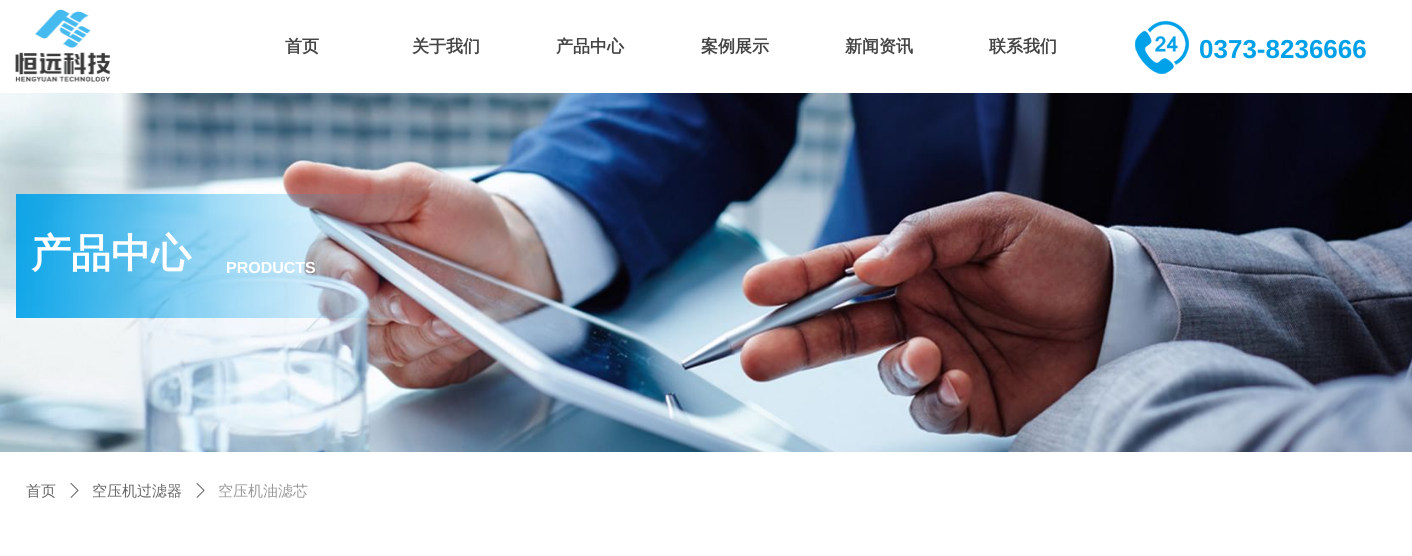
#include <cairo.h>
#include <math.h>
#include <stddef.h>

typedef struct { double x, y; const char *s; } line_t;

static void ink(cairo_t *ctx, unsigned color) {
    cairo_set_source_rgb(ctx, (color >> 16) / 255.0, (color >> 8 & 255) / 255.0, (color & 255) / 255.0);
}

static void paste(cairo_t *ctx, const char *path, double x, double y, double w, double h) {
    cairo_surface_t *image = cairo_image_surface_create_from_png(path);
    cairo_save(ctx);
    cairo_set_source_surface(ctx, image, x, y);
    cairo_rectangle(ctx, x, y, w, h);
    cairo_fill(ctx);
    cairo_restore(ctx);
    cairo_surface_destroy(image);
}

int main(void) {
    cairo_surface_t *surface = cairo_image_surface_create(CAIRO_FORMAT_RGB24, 1412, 556);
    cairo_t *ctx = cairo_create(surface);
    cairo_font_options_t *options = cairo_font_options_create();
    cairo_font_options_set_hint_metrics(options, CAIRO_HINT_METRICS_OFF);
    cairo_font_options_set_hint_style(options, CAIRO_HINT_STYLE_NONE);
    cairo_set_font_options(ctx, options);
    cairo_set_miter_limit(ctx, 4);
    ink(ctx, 0xFFFFFF);
    cairo_paint(ctx);
    paste(ctx, "media/1.png", 15, 9, 95, 73);
    cairo_select_font_face(ctx, "WenQuanYi Zen Hei", CAIRO_FONT_SLANT_NORMAL, CAIRO_FONT_WEIGHT_BOLD);
    cairo_set_font_size(ctx, 17);
    ink(ctx, 0x444444);
    {
        static const line_t items[] = {
            {285, 52, "首页"},
            {412, 52, "关于我们"},
            {556, 52, "产品中心"},
            {701, 52, "案例展示"},
            {845, 52, "新闻资讯"},
            {989, 52, "联系我们"},
        };
        for (size_t i = 0; i < sizeof items / sizeof *items; i++) {
            cairo_move_to(ctx, items[i].x, items[i].y);
            cairo_show_text(ctx, items[i].s);
        }
    }
    paste(ctx, "media/2.png", 1135, 21, 54, 53);
    cairo_select_font_face(ctx, "Liberation Sans", CAIRO_FONT_SLANT_NORMAL, CAIRO_FONT_WEIGHT_BOLD);
    cairo_set_font_size(ctx, 26);
    ink(ctx, 0x00A1E9);
    cairo_move_to(ctx, 1199, 58);
    cairo_show_text(ctx, "0373-8236666");
    paste(ctx, "media/3.png", 0, 93, 1412, 359);
    paste(ctx, "media/4.png", 16, 194, 396, 124);
    cairo_select_font_face(ctx, "WenQuanYi Zen Hei", CAIRO_FONT_SLANT_NORMAL, CAIRO_FONT_WEIGHT_BOLD);
    cairo_set_font_size(ctx, 40);
    ink(ctx, 0xFFFFFF);
    cairo_move_to(ctx, 31, 267);
    cairo_show_text(ctx, "产品中心");
    cairo_select_font_face(ctx, "Liberation Sans", CAIRO_FONT_SLANT_NORMAL, CAIRO_FONT_WEIGHT_BOLD);
    cairo_set_font_size(ctx, 16);
    cairo_move_to(ctx, 226, 273);
    cairo_show_text(ctx, "PRODUCTS");
    cairo_select_font_face(ctx, "WenQuanYi Zen Hei Medium", CAIRO_FONT_SLANT_NORMAL, CAIRO_FONT_WEIGHT_NORMAL);
    cairo_set_font_size(ctx, 15);
    ink(ctx, 0x666666);
    cairo_move_to(ctx, 26, 496);
    cairo_show_text(ctx, "首页");
    paste(ctx, "media/5.png", 70, 483, 9, 15);
    cairo_move_to(ctx, 92, 496);
    cairo_show_text(ctx, "空压机过滤器");
    paste(ctx, "media/5.png", 196, 483, 9, 15);
    ink(ctx, 0x999999);
    cairo_move_to(ctx, 218, 496);
    cairo_show_text(ctx, "空压机油滤芯");
    cairo_surface_write_to_png(surface, "image.png");
    cairo_font_options_destroy(options);
    cairo_destroy(ctx);
    cairo_surface_destroy(surface);
    return 0;
}
